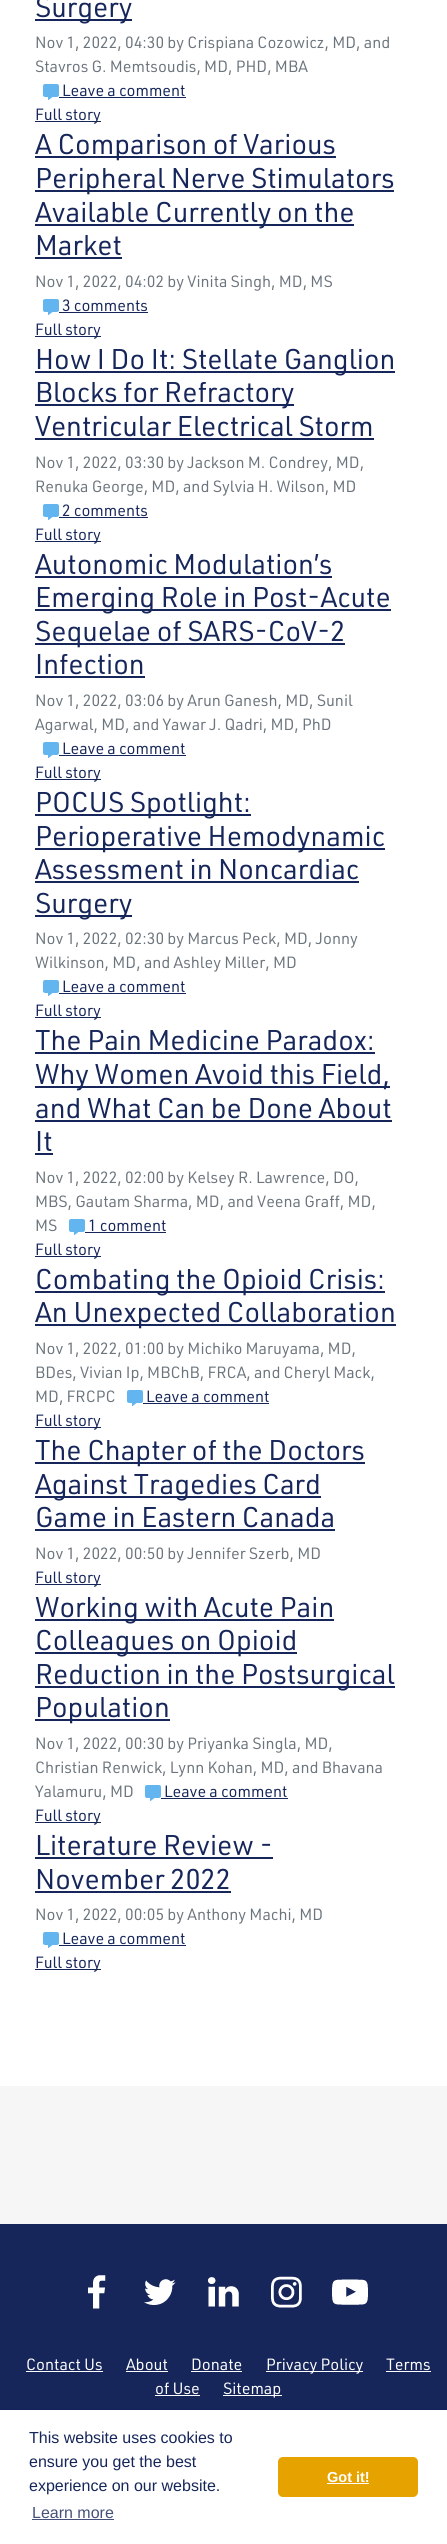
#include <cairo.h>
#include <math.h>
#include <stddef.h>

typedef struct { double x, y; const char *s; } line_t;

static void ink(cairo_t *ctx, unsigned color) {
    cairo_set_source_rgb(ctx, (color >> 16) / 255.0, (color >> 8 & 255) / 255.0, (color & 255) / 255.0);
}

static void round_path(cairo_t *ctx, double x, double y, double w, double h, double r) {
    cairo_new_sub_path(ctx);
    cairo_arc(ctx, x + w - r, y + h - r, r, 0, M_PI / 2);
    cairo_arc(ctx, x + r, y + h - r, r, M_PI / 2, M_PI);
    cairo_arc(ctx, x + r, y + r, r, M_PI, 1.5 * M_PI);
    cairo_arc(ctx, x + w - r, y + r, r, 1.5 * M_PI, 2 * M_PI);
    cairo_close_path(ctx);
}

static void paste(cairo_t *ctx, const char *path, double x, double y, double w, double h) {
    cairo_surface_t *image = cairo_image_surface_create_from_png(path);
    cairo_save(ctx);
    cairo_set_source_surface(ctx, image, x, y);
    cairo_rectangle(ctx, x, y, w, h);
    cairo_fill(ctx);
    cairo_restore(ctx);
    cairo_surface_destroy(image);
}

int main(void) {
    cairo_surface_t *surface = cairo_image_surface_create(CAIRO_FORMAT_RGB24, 447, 2544);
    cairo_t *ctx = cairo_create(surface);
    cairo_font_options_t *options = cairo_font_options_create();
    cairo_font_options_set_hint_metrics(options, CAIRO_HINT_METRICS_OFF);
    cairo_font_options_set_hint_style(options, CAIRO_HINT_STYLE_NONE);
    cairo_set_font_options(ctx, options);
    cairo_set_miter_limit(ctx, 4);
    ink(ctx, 0xFFFFFF);
    cairo_paint(ctx);
    ink(ctx, 0x16265A);
    cairo_rectangle(ctx, 35, 19, 97, 2);
    cairo_fill(ctx);
    cairo_select_font_face(ctx, "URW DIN", CAIRO_FONT_SLANT_NORMAL, CAIRO_FONT_WEIGHT_NORMAL);
    cairo_set_font_size(ctx, 28);
    cairo_move_to(ctx, 35, 17);
    cairo_show_text(ctx, "Surgery");
    cairo_set_font_size(ctx, 16);
    ink(ctx, 0x6C757D);
    cairo_move_to(ctx, 35, 48);
    cairo_show_text(ctx, "Nov 1, 2022, 04:30 by Crispiana Cozowicz, MD, and");
    cairo_move_to(ctx, 35, 72);
    cairo_show_text(ctx, "Stavros G. Memtsoudis, MD, PHD, MBA");
    paste(ctx, "media/1.png", 43, 84, 16, 16);
    ink(ctx, 0x16265A);
    cairo_move_to(ctx, 62, 96);
    cairo_show_text(ctx, "Leave a comment");
    cairo_rectangle(ctx, 59, 97, 127, 1);
    cairo_fill(ctx);
    cairo_rectangle(ctx, 35, 121, 66, 1);
    cairo_fill(ctx);
    cairo_move_to(ctx, 35, 120);
    cairo_show_text(ctx, "Full story");
    cairo_rectangle(ctx, 35, 156, 301, 2);
    cairo_fill(ctx);
    cairo_set_font_size(ctx, 28);
    cairo_move_to(ctx, 35, 154);
    cairo_show_text(ctx, "A Comparison of Various");
    cairo_rectangle(ctx, 35, 190, 359, 2);
    cairo_fill(ctx);
    cairo_move_to(ctx, 35, 188);
    cairo_show_text(ctx, "Peripheral Nerve Stimulators");
    cairo_rectangle(ctx, 35, 224, 319, 2);
    cairo_fill(ctx);
    cairo_move_to(ctx, 35, 222);
    cairo_show_text(ctx, "Available Currently on the");
    cairo_move_to(ctx, 35, 255);
    cairo_show_text(ctx, "Market");
    cairo_rectangle(ctx, 35, 257, 87, 2);
    cairo_fill(ctx);
    cairo_set_font_size(ctx, 16);
    ink(ctx, 0x6C757D);
    cairo_move_to(ctx, 35, 287);
    cairo_show_text(ctx, "Nov 1, 2022, 04:02 by Vinita Singh, MD, MS");
    paste(ctx, "media/1.png", 43, 299, 16, 16);
    ink(ctx, 0x16265A);
    cairo_move_to(ctx, 62, 311);
    cairo_show_text(ctx, "3 comments");
    cairo_rectangle(ctx, 59, 312, 89, 1);
    cairo_fill(ctx);
    cairo_rectangle(ctx, 35, 336, 66, 1);
    cairo_fill(ctx);
    cairo_move_to(ctx, 35, 335);
    cairo_show_text(ctx, "Full story");
    cairo_rectangle(ctx, 35, 371, 360, 2);
    cairo_fill(ctx);
    cairo_set_font_size(ctx, 28);
    cairo_move_to(ctx, 35, 369);
    cairo_show_text(ctx, "How I Do It: Stellate Ganglion");
    cairo_rectangle(ctx, 35, 404, 259, 2);
    cairo_fill(ctx);
    cairo_move_to(ctx, 35, 402);
    cairo_show_text(ctx, "Blocks for Refractory");
    cairo_move_to(ctx, 35, 436);
    cairo_show_text(ctx, "Ventricular Electrical Storm");
    cairo_rectangle(ctx, 35, 438, 339, 2);
    cairo_fill(ctx);
    cairo_set_font_size(ctx, 16);
    ink(ctx, 0x6C757D);
    cairo_move_to(ctx, 35, 468);
    cairo_show_text(ctx, "Nov 1, 2022, 03:30 by Jackson M. Condrey, MD,");
    cairo_move_to(ctx, 35, 492);
    cairo_show_text(ctx, "Renuka George, MD, and Sylvia H. Wilson, MD");
    paste(ctx, "media/1.png", 43, 504, 16, 16);
    ink(ctx, 0x16265A);
    cairo_move_to(ctx, 62, 516);
    cairo_show_text(ctx, "2 comments");
    cairo_rectangle(ctx, 59, 517, 89, 1);
    cairo_fill(ctx);
    cairo_rectangle(ctx, 35, 541, 66, 1);
    cairo_fill(ctx);
    cairo_move_to(ctx, 35, 540);
    cairo_show_text(ctx, "Full story");
    cairo_set_font_size(ctx, 28);
    cairo_move_to(ctx, 35, 574);
    cairo_show_text(ctx, "Autonomic Modulation’s");
    cairo_rectangle(ctx, 35, 576, 297, 2);
    cairo_fill(ctx);
    cairo_rectangle(ctx, 35, 609, 356, 2);
    cairo_fill(ctx);
    cairo_move_to(ctx, 35, 607);
    cairo_show_text(ctx, "Emerging Role in Post-Acute");
    cairo_rectangle(ctx, 35, 643, 310, 2);
    cairo_fill(ctx);
    cairo_move_to(ctx, 35, 641);
    cairo_show_text(ctx, "Sequelae of SARS-CoV-2");
    cairo_move_to(ctx, 35, 674);
    cairo_show_text(ctx, "Infection");
    cairo_rectangle(ctx, 35, 676, 110, 2);
    cairo_fill(ctx);
    cairo_set_font_size(ctx, 16);
    ink(ctx, 0x6C757D);
    cairo_move_to(ctx, 35, 706);
    cairo_show_text(ctx, "Nov 1, 2022, 03:06 by Arun Ganesh, MD, Sunil");
    cairo_move_to(ctx, 35, 730);
    cairo_show_text(ctx, "Agarwal, MD, and Yawar J. Qadri, MD, PhD");
    paste(ctx, "media/1.png", 43, 742, 16, 16);
    ink(ctx, 0x16265A);
    cairo_move_to(ctx, 62, 754);
    cairo_show_text(ctx, "Leave a comment");
    cairo_rectangle(ctx, 59, 755, 127, 1);
    cairo_fill(ctx);
    cairo_rectangle(ctx, 35, 779, 66, 1);
    cairo_fill(ctx);
    cairo_move_to(ctx, 35, 778);
    cairo_show_text(ctx, "Full story");
    cairo_rectangle(ctx, 35, 814, 216, 2);
    cairo_fill(ctx);
    cairo_set_font_size(ctx, 28);
    cairo_move_to(ctx, 35, 812);
    cairo_show_text(ctx, "POCUS Spotlight:");
    cairo_rectangle(ctx, 35, 848, 350, 2);
    cairo_fill(ctx);
    cairo_move_to(ctx, 35, 846);
    cairo_show_text(ctx, "Perioperative Hemodynamic");
    cairo_move_to(ctx, 35, 879);
    cairo_show_text(ctx, "Assessment in Noncardiac");
    cairo_rectangle(ctx, 35, 881, 324, 2);
    cairo_fill(ctx);
    cairo_rectangle(ctx, 35, 915, 97, 2);
    cairo_fill(ctx);
    cairo_move_to(ctx, 35, 913);
    cairo_show_text(ctx, "Surgery");
    cairo_set_font_size(ctx, 16);
    ink(ctx, 0x6C757D);
    cairo_move_to(ctx, 35, 944);
    cairo_show_text(ctx, "Nov 1, 2022, 02:30 by Marcus Peck, MD, Jonny");
    cairo_move_to(ctx, 35, 968);
    cairo_show_text(ctx, "Wilkinson, MD, and Ashley Miller, MD");
    paste(ctx, "media/1.png", 43, 980, 16, 16);
    ink(ctx, 0x16265A);
    cairo_move_to(ctx, 62, 992);
    cairo_show_text(ctx, "Leave a comment");
    cairo_rectangle(ctx, 59, 993, 127, 1);
    cairo_fill(ctx);
    cairo_rectangle(ctx, 35, 1017, 66, 1);
    cairo_fill(ctx);
    cairo_move_to(ctx, 35, 1016);
    cairo_show_text(ctx, "Full story");
    cairo_set_font_size(ctx, 28);
    cairo_move_to(ctx, 35, 1050);
    cairo_show_text(ctx, "The Pain Medicine Paradox:");
    cairo_rectangle(ctx, 35, 1052, 340, 2);
    cairo_fill(ctx);
    cairo_rectangle(ctx, 35, 1086, 355, 2);
    cairo_fill(ctx);
    cairo_move_to(ctx, 35, 1084);
    cairo_show_text(ctx, "Why Women Avoid this Field,");
    cairo_move_to(ctx, 35, 1118);
    cairo_show_text(ctx, "and What Can be Done About");
    cairo_rectangle(ctx, 35, 1120, 357, 2);
    cairo_fill(ctx);
    cairo_move_to(ctx, 35, 1151);
    cairo_show_text(ctx, "It");
    cairo_rectangle(ctx, 35, 1153, 18, 2);
    cairo_fill(ctx);
    cairo_set_font_size(ctx, 16);
    ink(ctx, 0x6C757D);
    {
        static const line_t items[] = {
            {35, 1183, "Nov 1, 2022, 02:00 by Kelsey R. Lawrence, DO,"},
            {35, 1207, "MBS, Gautam Sharma, MD, and Veena Graff, MD,"},
            {35, 1231, "MS"},
        };
        for (size_t i = 0; i < sizeof items / sizeof *items; i++) {
            cairo_move_to(ctx, items[i].x, items[i].y);
            cairo_show_text(ctx, items[i].s);
        }
    }
    paste(ctx, "media/1.png", 69, 1219, 16, 16);
    ink(ctx, 0x16265A);
    cairo_move_to(ctx, 88, 1231);
    cairo_show_text(ctx, "1 comment");
    cairo_rectangle(ctx, 85, 1232, 81, 1);
    cairo_fill(ctx);
    cairo_rectangle(ctx, 35, 1256, 66, 1);
    cairo_fill(ctx);
    cairo_move_to(ctx, 35, 1255);
    cairo_show_text(ctx, "Full story");
    cairo_rectangle(ctx, 35, 1291, 350, 2);
    cairo_fill(ctx);
    cairo_set_font_size(ctx, 28);
    cairo_move_to(ctx, 35, 1289);
    cairo_show_text(ctx, "Combating the Opioid Crisis:");
    cairo_rectangle(ctx, 35, 1324, 361, 2);
    cairo_fill(ctx);
    cairo_move_to(ctx, 35, 1322);
    cairo_show_text(ctx, "An Unexpected Collaboration");
    cairo_set_font_size(ctx, 16);
    ink(ctx, 0x6C757D);
    {
        static const line_t items[] = {
            {35, 1354, "Nov 1, 2022, 01:00 by Michiko Maruyama, MD,"},
            {35, 1378, "BDes, Vivian Ip, MBChB, FRCA, and Cheryl Mack,"},
            {35, 1402, "MD, FRCPC"},
        };
        for (size_t i = 0; i < sizeof items / sizeof *items; i++) {
            cairo_move_to(ctx, items[i].x, items[i].y);
            cairo_show_text(ctx, items[i].s);
        }
    }
    paste(ctx, "media/1.png", 127, 1390, 16, 16);
    ink(ctx, 0x16265A);
    cairo_move_to(ctx, 146, 1402);
    cairo_show_text(ctx, "Leave a comment");
    cairo_rectangle(ctx, 143, 1403, 126, 1);
    cairo_fill(ctx);
    cairo_rectangle(ctx, 35, 1427, 66, 1);
    cairo_fill(ctx);
    cairo_move_to(ctx, 35, 1426);
    cairo_show_text(ctx, "Full story");
    cairo_rectangle(ctx, 35, 1462, 330, 2);
    cairo_fill(ctx);
    cairo_set_font_size(ctx, 28);
    cairo_move_to(ctx, 35, 1460);
    cairo_show_text(ctx, "The Chapter of the Doctors");
    cairo_rectangle(ctx, 35, 1496, 286, 2);
    cairo_fill(ctx);
    cairo_move_to(ctx, 35, 1494);
    cairo_show_text(ctx, "Against Tragedies Card");
    cairo_move_to(ctx, 35, 1527);
    cairo_show_text(ctx, "Game in Eastern Canada");
    cairo_rectangle(ctx, 35, 1529, 300, 2);
    cairo_fill(ctx);
    cairo_set_font_size(ctx, 16);
    ink(ctx, 0x6C757D);
    cairo_move_to(ctx, 35, 1559);
    cairo_show_text(ctx, "Nov 1, 2022, 00:50 by Jennifer Szerb, MD");
    ink(ctx, 0x16265A);
    cairo_rectangle(ctx, 35, 1584, 66, 1);
    cairo_fill(ctx);
    cairo_move_to(ctx, 35, 1583);
    cairo_show_text(ctx, "Full story");
    cairo_rectangle(ctx, 35, 1619, 299, 2);
    cairo_fill(ctx);
    cairo_set_font_size(ctx, 28);
    cairo_move_to(ctx, 35, 1617);
    cairo_show_text(ctx, "Working with Acute Pain");
    cairo_rectangle(ctx, 35, 1652, 262, 2);
    cairo_fill(ctx);
    cairo_move_to(ctx, 35, 1650);
    cairo_show_text(ctx, "Colleagues on Opioid");
    cairo_rectangle(ctx, 35, 1686, 360, 2);
    cairo_fill(ctx);
    cairo_move_to(ctx, 35, 1684);
    cairo_show_text(ctx, "Reduction in the Postsurgical");
    cairo_rectangle(ctx, 35, 1719, 135, 2);
    cairo_fill(ctx);
    cairo_move_to(ctx, 35, 1717);
    cairo_show_text(ctx, "Population");
    cairo_set_font_size(ctx, 16);
    ink(ctx, 0x6C757D);
    {
        static const line_t items[] = {
            {35, 1749, "Nov 1, 2022, 00:30 by Priyanka Singla, MD,"},
            {35, 1773, "Christian Renwick, Lynn Kohan, MD, and Bhavana"},
            {35, 1797, "Yalamuru, MD"},
        };
        for (size_t i = 0; i < sizeof items / sizeof *items; i++) {
            cairo_move_to(ctx, items[i].x, items[i].y);
            cairo_show_text(ctx, items[i].s);
        }
    }
    paste(ctx, "media/1.png", 145, 1785, 16, 16);
    ink(ctx, 0x16265A);
    cairo_move_to(ctx, 164, 1797);
    cairo_show_text(ctx, "Leave a comment");
    cairo_rectangle(ctx, 161, 1798, 127, 1);
    cairo_fill(ctx);
    cairo_rectangle(ctx, 35, 1822, 66, 1);
    cairo_fill(ctx);
    cairo_move_to(ctx, 35, 1821);
    cairo_show_text(ctx, "Full story");
    cairo_set_font_size(ctx, 28);
    cairo_move_to(ctx, 35, 1855);
    cairo_show_text(ctx, "Literature Review -");
    cairo_rectangle(ctx, 35, 1857, 238, 2);
    cairo_fill(ctx);
    cairo_move_to(ctx, 35, 1889);
    cairo_show_text(ctx, "November 2022");
    cairo_rectangle(ctx, 35, 1891, 196, 2);
    cairo_fill(ctx);
    cairo_set_font_size(ctx, 16);
    ink(ctx, 0x6C757D);
    cairo_move_to(ctx, 35, 1920);
    cairo_show_text(ctx, "Nov 1, 2022, 00:05 by Anthony Machi, MD");
    paste(ctx, "media/1.png", 43, 1932, 16, 16);
    ink(ctx, 0x16265A);
    cairo_move_to(ctx, 62, 1944);
    cairo_show_text(ctx, "Leave a comment");
    cairo_rectangle(ctx, 59, 1945, 127, 1);
    cairo_fill(ctx);
    cairo_rectangle(ctx, 35, 1969, 66, 1);
    cairo_fill(ctx);
    cairo_move_to(ctx, 35, 1968);
    cairo_show_text(ctx, "Full story");
    ink(ctx, 0xF6F6F6);
    cairo_rectangle(ctx, 0, 2086, 447, 138);
    cairo_fill(ctx);
    ink(ctx, 0x16265A);
    cairo_rectangle(ctx, 0, 2224, 447, 186);
    cairo_fill(ctx);
    paste(ctx, "media/2.png", 88, 2275, 18, 34);
    paste(ctx, "media/3.png", 144, 2279, 32, 26);
    paste(ctx, "media/4.png", 208, 2277, 31, 30);
    paste(ctx, "media/5.png", 271, 2276, 31, 32);
    paste(ctx, "media/6.png", 332, 2279, 36, 26);
    ink(ctx, 0xFFFFFF);
    cairo_move_to(ctx, 26, 2370);
    cairo_show_text(ctx, "Contact Us");
    cairo_rectangle(ctx, 26, 2371, 77, 1);
    cairo_fill(ctx);
    cairo_move_to(ctx, 126, 2370);
    cairo_show_text(ctx, "About");
    cairo_rectangle(ctx, 126, 2371, 42, 1);
    cairo_fill(ctx);
    cairo_move_to(ctx, 191, 2370);
    cairo_show_text(ctx, "Donate");
    cairo_rectangle(ctx, 191, 2371, 51, 1);
    cairo_fill(ctx);
    cairo_rectangle(ctx, 266, 2371, 97, 1);
    cairo_fill(ctx);
    cairo_move_to(ctx, 266, 2370);
    cairo_show_text(ctx, "Privacy Policy");
    cairo_move_to(ctx, 386, 2370);
    cairo_show_text(ctx, "Terms");
    cairo_rectangle(ctx, 386, 2371, 45, 1);
    cairo_fill(ctx);
    cairo_move_to(ctx, 155, 2394);
    cairo_show_text(ctx, "of Use");
    cairo_rectangle(ctx, 155, 2395, 45, 1);
    cairo_fill(ctx);
    cairo_rectangle(ctx, 223, 2395, 59, 1);
    cairo_fill(ctx);
    cairo_move_to(ctx, 223, 2394);
    cairo_show_text(ctx, "Sitemap");
    cairo_select_font_face(ctx, "Liberation Sans", CAIRO_FONT_SLANT_NORMAL, CAIRO_FONT_WEIGHT_NORMAL);
    ink(ctx, 0x16265A);
    {
        static const line_t items[] = {
            {29, 2443, "This website uses cookies to"},
            {29, 2467, "ensure you get the best"},
            {29, 2491, "experience on our website."},
        };
        for (size_t i = 0; i < sizeof items / sizeof *items; i++) {
            cairo_move_to(ctx, items[i].x, items[i].y);
            cairo_show_text(ctx, items[i].s);
        }
    }
    ink(ctx, 0x45517B);
    cairo_move_to(ctx, 32, 2518);
    cairo_show_text(ctx, "Learn more");
    cairo_rectangle(ctx, 32, 2519, 82, 1);
    cairo_fill(ctx);
    ink(ctx, 0xE6A300);
    round_path(ctx, 278, 2457, 140, 40, 5);
    cairo_fill(ctx);
    cairo_select_font_face(ctx, "Liberation Sans", CAIRO_FONT_SLANT_NORMAL, CAIRO_FONT_WEIGHT_BOLD);
    cairo_set_font_size(ctx, 14.5);
    ink(ctx, 0xFFFFFF);
    cairo_move_to(ctx, 327, 2482);
    cairo_show_text(ctx, "Got it!");
    cairo_rectangle(ctx, 327, 2483, 42, 1);
    cairo_fill(ctx);
    cairo_surface_write_to_png(surface, "image.png");
    cairo_font_options_destroy(options);
    cairo_destroy(ctx);
    cairo_surface_destroy(surface);
    return 0;
}
